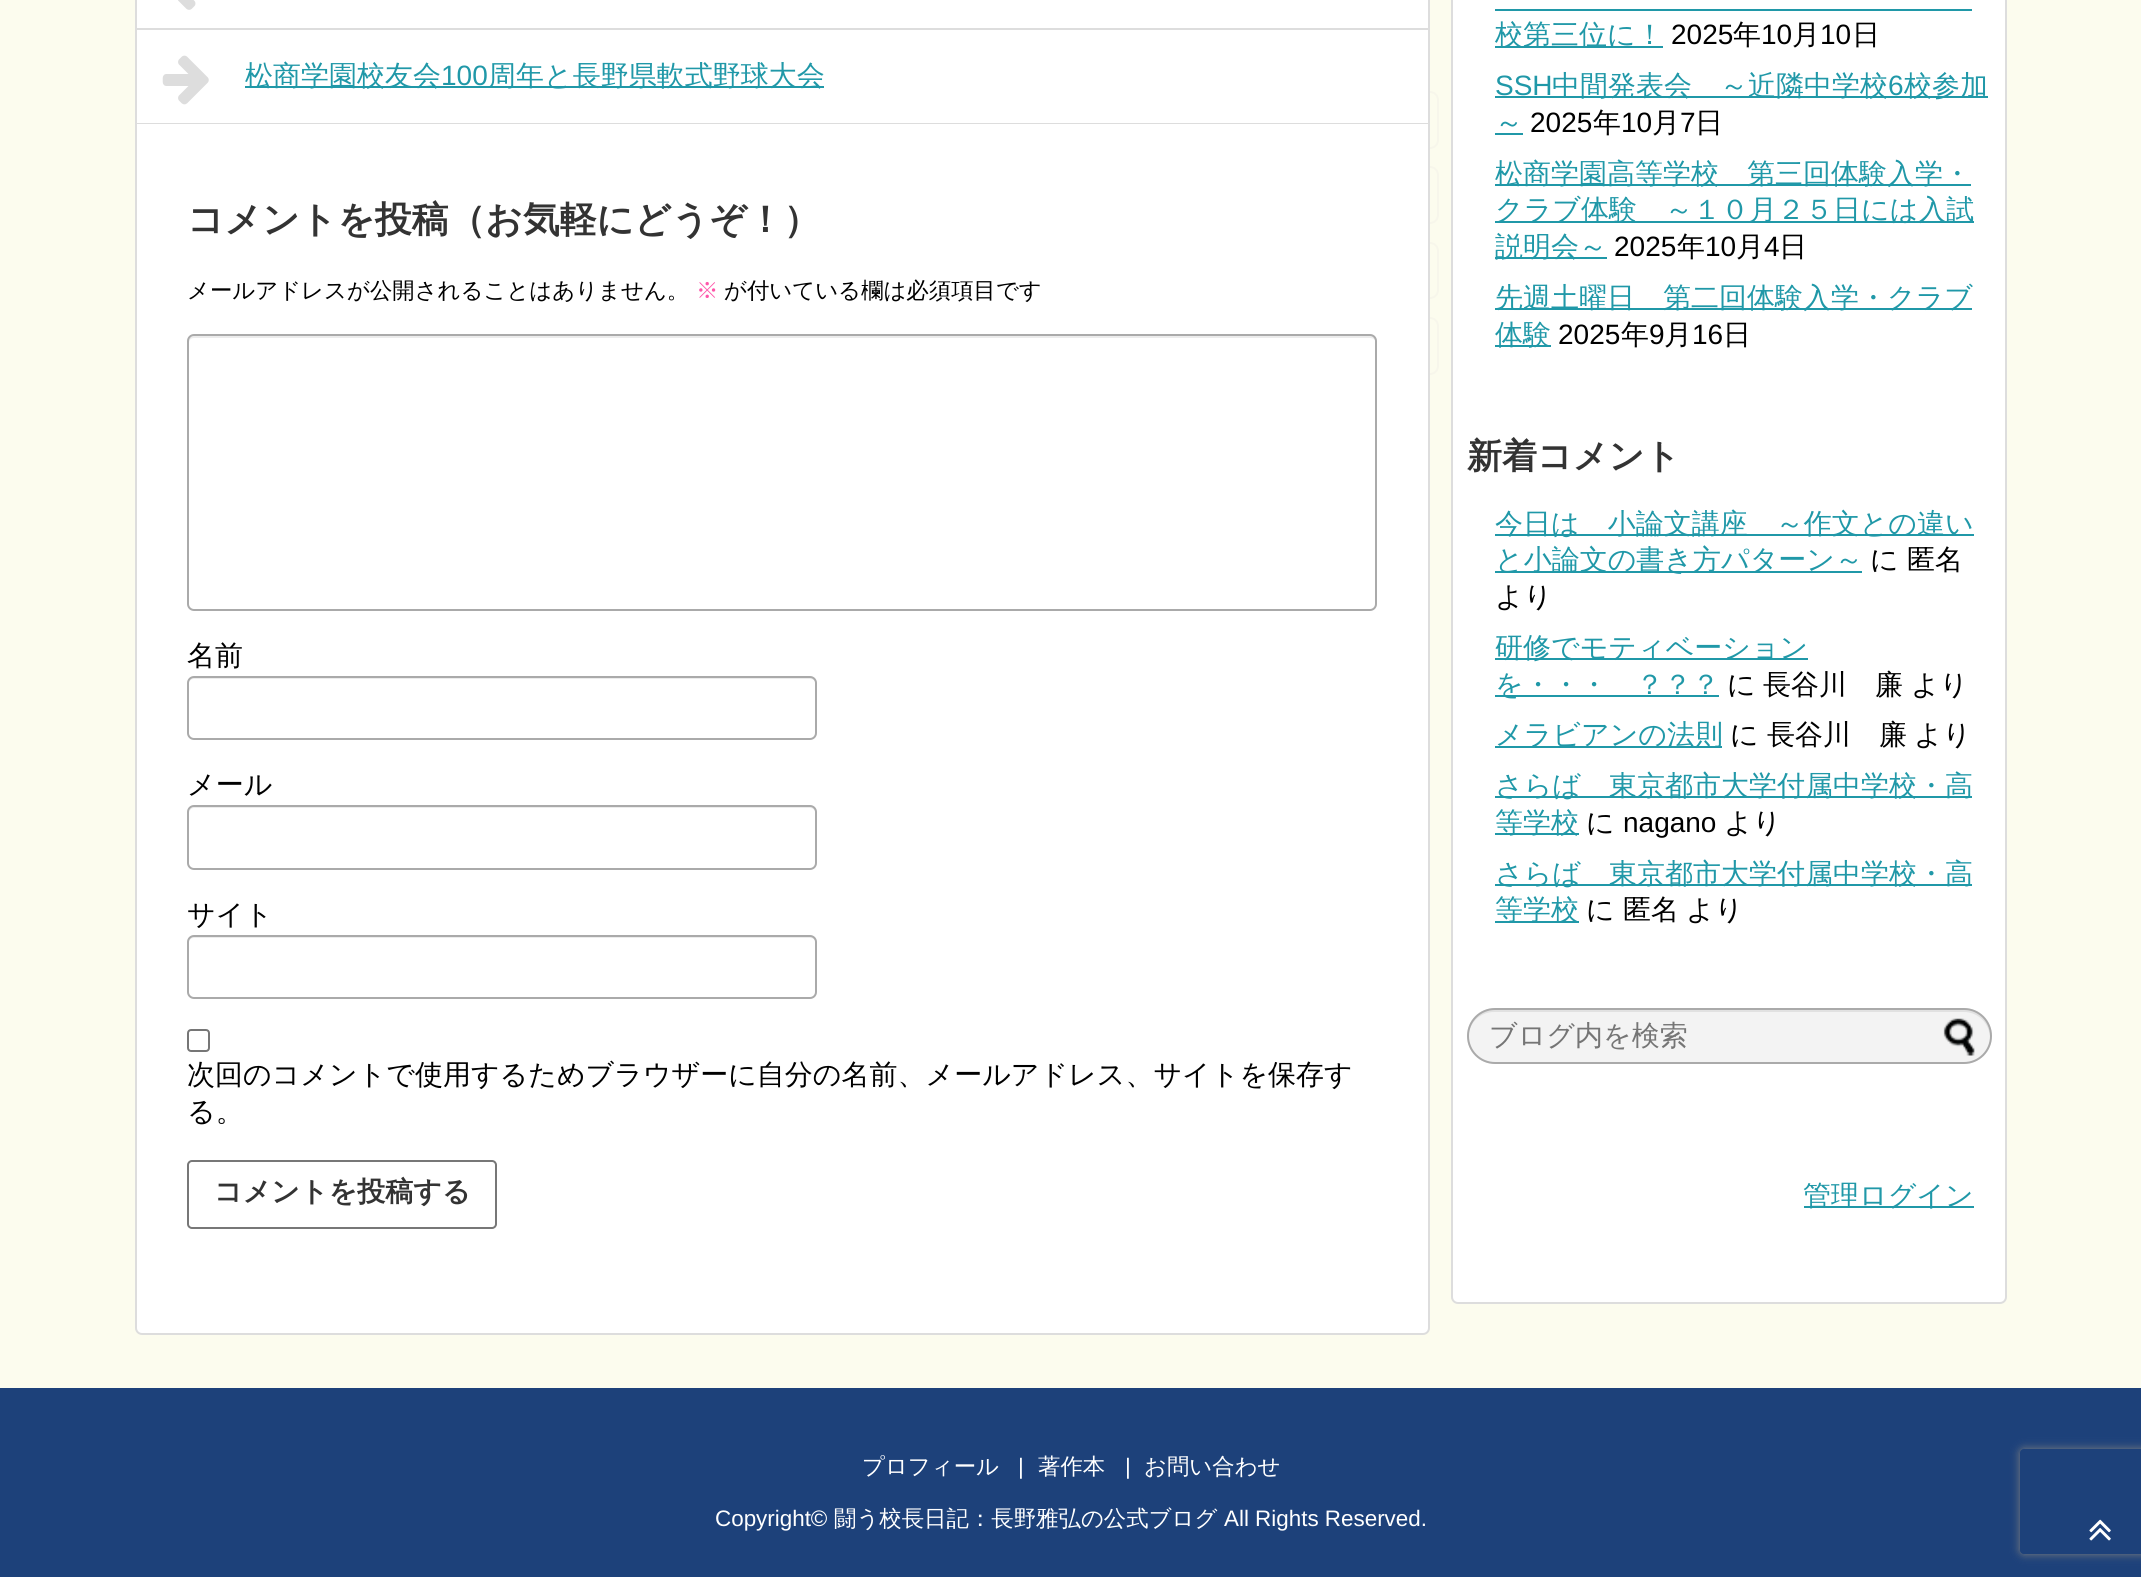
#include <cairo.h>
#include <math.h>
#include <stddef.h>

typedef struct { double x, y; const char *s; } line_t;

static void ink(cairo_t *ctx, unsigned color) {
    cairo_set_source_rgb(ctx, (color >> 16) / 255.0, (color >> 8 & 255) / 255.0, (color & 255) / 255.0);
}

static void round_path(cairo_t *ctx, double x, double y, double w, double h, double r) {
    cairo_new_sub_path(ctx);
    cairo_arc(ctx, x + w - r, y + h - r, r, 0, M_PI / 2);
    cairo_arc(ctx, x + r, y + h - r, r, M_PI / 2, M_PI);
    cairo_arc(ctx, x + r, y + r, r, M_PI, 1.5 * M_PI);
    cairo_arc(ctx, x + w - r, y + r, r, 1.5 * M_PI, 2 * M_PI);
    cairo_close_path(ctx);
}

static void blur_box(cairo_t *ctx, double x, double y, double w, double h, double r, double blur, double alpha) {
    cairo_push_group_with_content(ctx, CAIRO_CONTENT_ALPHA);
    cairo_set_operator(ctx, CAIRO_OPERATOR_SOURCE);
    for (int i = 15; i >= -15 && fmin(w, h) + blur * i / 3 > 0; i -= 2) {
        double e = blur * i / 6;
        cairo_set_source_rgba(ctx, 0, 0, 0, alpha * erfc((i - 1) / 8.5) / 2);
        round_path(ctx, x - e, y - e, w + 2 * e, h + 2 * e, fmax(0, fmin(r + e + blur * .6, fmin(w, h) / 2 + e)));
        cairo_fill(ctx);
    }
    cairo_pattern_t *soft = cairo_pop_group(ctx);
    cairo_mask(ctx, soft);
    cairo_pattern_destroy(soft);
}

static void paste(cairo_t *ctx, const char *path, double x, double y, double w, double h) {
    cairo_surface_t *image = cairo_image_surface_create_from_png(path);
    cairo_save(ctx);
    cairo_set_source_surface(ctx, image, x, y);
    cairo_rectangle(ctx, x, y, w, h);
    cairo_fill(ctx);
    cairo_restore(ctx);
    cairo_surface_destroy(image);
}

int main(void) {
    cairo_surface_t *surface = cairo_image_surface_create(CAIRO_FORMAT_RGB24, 2141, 1577);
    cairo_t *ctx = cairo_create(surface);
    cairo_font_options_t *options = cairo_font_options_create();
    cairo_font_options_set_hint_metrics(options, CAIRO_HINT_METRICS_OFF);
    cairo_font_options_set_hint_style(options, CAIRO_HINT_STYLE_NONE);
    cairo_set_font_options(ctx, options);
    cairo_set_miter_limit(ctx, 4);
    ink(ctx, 0xFCFCEE);
    cairo_paint(ctx);
    round_path(ctx, 705, 92, 733, 56, 8);
    ink(ctx, 0xF7F6EB);
    cairo_stroke(ctx);
    round_path(ctx, 705, 167, 733, 56, 8);
    cairo_stroke(ctx);
    round_path(ctx, 705, 243, 733, 55, 8);
    cairo_stroke(ctx);
    round_path(ctx, 705, 318, 733, 56, 8);
    cairo_stroke(ctx);
    ink(ctx, 0xFFFFFF);
    round_path(ctx, 136, -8, 1293, 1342, 6);
    cairo_fill_preserve(ctx);
    ink(ctx, 0xDDDDDD);
    cairo_stroke(ctx);
    cairo_rectangle(ctx, 135, 28, 1295, 2);
    cairo_fill(ctx);
    paste(ctx, "media/1.png", 178, 0, 18, 10);
    cairo_rectangle(ctx, 135, 123, 1295, 1);
    cairo_fill(ctx);
    paste(ctx, "media/2.png", 162, 55, 47, 50);
    ink(ctx, 0x2098A8);
    cairo_rectangle(ctx, 245, 86, 579, 2);
    cairo_fill(ctx);
    cairo_select_font_face(ctx, "WenQuanYi Zen Hei Medium", CAIRO_FONT_SLANT_NORMAL, CAIRO_FONT_WEIGHT_NORMAL);
    cairo_set_font_size(ctx, 28);
    cairo_move_to(ctx, 245, 85);
    cairo_show_text(ctx, "松商学園校友会");
    cairo_select_font_face(ctx, "Liberation Sans", CAIRO_FONT_SLANT_NORMAL, CAIRO_FONT_WEIGHT_NORMAL);
    cairo_move_to(ctx, 441, 85);
    cairo_show_text(ctx, "100");
    cairo_select_font_face(ctx, "WenQuanYi Zen Hei Medium", CAIRO_FONT_SLANT_NORMAL, CAIRO_FONT_WEIGHT_NORMAL);
    cairo_move_to(ctx, 488, 85);
    cairo_show_text(ctx, "周年と長野県軟式野球大会");
    cairo_select_font_face(ctx, "WenQuanYi Zen Hei", CAIRO_FONT_SLANT_NORMAL, CAIRO_FONT_WEIGHT_BOLD);
    cairo_set_font_size(ctx, 36.75);
    ink(ctx, 0x333333);
    cairo_move_to(ctx, 187, 232);
    cairo_show_text(ctx, "コメントを投稿（お気軽にどうぞ！）");
    cairo_select_font_face(ctx, "WenQuanYi Zen Hei Medium", CAIRO_FONT_SLANT_NORMAL, CAIRO_FONT_WEIGHT_NORMAL);
    cairo_set_font_size(ctx, 22.4);
    ink(ctx, 0x000000);
    cairo_move_to(ctx, 187, 298);
    cairo_show_text(ctx, "メールアドレスが公開されることはありません。");
    ink(ctx, 0xFE56AA);
    cairo_move_to(ctx, 696, 298);
    cairo_show_text(ctx, "※");
    ink(ctx, 0x000000);
    cairo_move_to(ctx, 724, 298);
    cairo_show_text(ctx, "が付いている欄は必須項目です");
    ink(ctx, 0xECECEC);
    cairo_new_path(ctx);
    cairo_move_to(ctx, 194, 338);
    cairo_line_to(ctx, 1370, 338);
    cairo_curve_to(ctx, 1373, 338, 1376, 340, 1376, 343);
    cairo_line_to(ctx, 1376, 341);
    cairo_curve_to(ctx, 1376, 338, 1374, 336, 1371, 336);
    cairo_line_to(ctx, 194, 336);
    cairo_curve_to(ctx, 191, 336, 189, 338, 189, 341);
    cairo_line_to(ctx, 189, 343);
    cairo_curve_to(ctx, 189, 340, 191, 338, 194, 338);
    cairo_close_path(ctx);
    cairo_fill(ctx);
    round_path(ctx, 188, 335, 1188, 275, 6);
    ink(ctx, 0xAAAAAA);
    cairo_stroke(ctx);
    cairo_set_font_size(ctx, 28);
    ink(ctx, 0x000000);
    cairo_move_to(ctx, 187, 665);
    cairo_show_text(ctx, "名前");
    ink(ctx, 0xECECEC);
    cairo_new_path(ctx);
    cairo_move_to(ctx, 194, 679);
    cairo_line_to(ctx, 810, 679);
    cairo_curve_to(ctx, 813, 679, 816, 681, 816, 684);
    cairo_curve_to(ctx, 816, 681, 815, 677, 811, 677);
    cairo_line_to(ctx, 194, 677);
    cairo_curve_to(ctx, 190, 677, 189, 681, 189, 684);
    cairo_curve_to(ctx, 189, 681, 191, 679, 194, 679);
    cairo_close_path(ctx);
    cairo_fill(ctx);
    round_path(ctx, 188, 677, 628, 62, 6);
    ink(ctx, 0xAAAAAA);
    cairo_stroke(ctx);
    ink(ctx, 0x000000);
    cairo_move_to(ctx, 187, 794);
    cairo_show_text(ctx, "メール");
    ink(ctx, 0xECECEC);
    cairo_new_path(ctx);
    cairo_move_to(ctx, 194, 808);
    cairo_line_to(ctx, 810, 808);
    cairo_curve_to(ctx, 813, 808, 816, 811, 816, 814);
    cairo_curve_to(ctx, 816, 811, 815, 807, 811, 807);
    cairo_line_to(ctx, 194, 807);
    cairo_curve_to(ctx, 190, 807, 189, 811, 189, 814);
    cairo_curve_to(ctx, 189, 811, 191, 808, 194, 808);
    cairo_close_path(ctx);
    cairo_fill(ctx);
    round_path(ctx, 188, 806, 628, 63, 6);
    ink(ctx, 0xAAAAAA);
    cairo_stroke(ctx);
    ink(ctx, 0x000000);
    cairo_move_to(ctx, 187, 924);
    cairo_show_text(ctx, "サイト");
    ink(ctx, 0xECECEC);
    cairo_new_path(ctx);
    cairo_move_to(ctx, 194, 938);
    cairo_line_to(ctx, 810, 938);
    cairo_curve_to(ctx, 813, 938, 816, 940, 816, 943);
    cairo_curve_to(ctx, 816, 940, 815, 936, 811, 936);
    cairo_line_to(ctx, 194, 936);
    cairo_curve_to(ctx, 190, 936, 189, 940, 189, 943);
    cairo_curve_to(ctx, 189, 940, 191, 938, 194, 938);
    cairo_close_path(ctx);
    cairo_fill(ctx);
    round_path(ctx, 188, 936, 628, 62, 6);
    ink(ctx, 0xAAAAAA);
    cairo_stroke(ctx);
    round_path(ctx, 188, 1030, 21, 21, 3);
    ink(ctx, 0x767676);
    cairo_stroke(ctx);
    ink(ctx, 0x000000);
    cairo_move_to(ctx, 187, 1084);
    cairo_show_text(ctx, "次回のコメントで使用するためブラウザーに自分の名前、メールアドレス、サイトを保存す");
    cairo_move_to(ctx, 187, 1121);
    cairo_show_text(ctx, "る。");
    round_path(ctx, 188, 1161, 308, 67, 4);
    ink(ctx, 0x777777);
    cairo_stroke(ctx);
    cairo_select_font_face(ctx, "WenQuanYi Zen Hei", CAIRO_FONT_SLANT_NORMAL, CAIRO_FONT_WEIGHT_BOLD);
    ink(ctx, 0x333333);
    cairo_move_to(ctx, 214, 1201);
    cairo_show_text(ctx, "コメントを投稿する");
    ink(ctx, 0xFFFFFF);
    round_path(ctx, 1452, -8, 554, 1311, 6);
    cairo_fill_preserve(ctx);
    ink(ctx, 0xDDDDDD);
    cairo_stroke(ctx);
    ink(ctx, 0x2098A8);
    cairo_rectangle(ctx, 1495, 46, 168, 2);
    cairo_fill(ctx);
    cairo_select_font_face(ctx, "WenQuanYi Zen Hei Medium", CAIRO_FONT_SLANT_NORMAL, CAIRO_FONT_WEIGHT_NORMAL);
    cairo_move_to(ctx, 1495, 44);
    cairo_show_text(ctx, "校第三位に！");
    cairo_rectangle(ctx, 1495, 9, 477, 2);
    cairo_fill(ctx);
    cairo_select_font_face(ctx, "Liberation Sans", CAIRO_FONT_SLANT_NORMAL, CAIRO_FONT_WEIGHT_NORMAL);
    ink(ctx, 0x000000);
    cairo_move_to(ctx, 1671, 44);
    cairo_show_text(ctx, "2025");
    cairo_select_font_face(ctx, "WenQuanYi Zen Hei Medium", CAIRO_FONT_SLANT_NORMAL, CAIRO_FONT_WEIGHT_NORMAL);
    cairo_move_to(ctx, 1733, 44);
    cairo_show_text(ctx, "年");
    cairo_select_font_face(ctx, "Liberation Sans", CAIRO_FONT_SLANT_NORMAL, CAIRO_FONT_WEIGHT_NORMAL);
    cairo_move_to(ctx, 1761, 44);
    cairo_show_text(ctx, "10");
    cairo_select_font_face(ctx, "WenQuanYi Zen Hei Medium", CAIRO_FONT_SLANT_NORMAL, CAIRO_FONT_WEIGHT_NORMAL);
    cairo_move_to(ctx, 1792, 44);
    cairo_show_text(ctx, "月");
    cairo_select_font_face(ctx, "Liberation Sans", CAIRO_FONT_SLANT_NORMAL, CAIRO_FONT_WEIGHT_NORMAL);
    cairo_move_to(ctx, 1820, 44);
    cairo_show_text(ctx, "10");
    cairo_select_font_face(ctx, "WenQuanYi Zen Hei Medium", CAIRO_FONT_SLANT_NORMAL, CAIRO_FONT_WEIGHT_NORMAL);
    cairo_move_to(ctx, 1852, 44);
    cairo_show_text(ctx, "日");
    cairo_select_font_face(ctx, "Liberation Sans", CAIRO_FONT_SLANT_NORMAL, CAIRO_FONT_WEIGHT_NORMAL);
    ink(ctx, 0x2098A8);
    cairo_move_to(ctx, 1495, 95);
    cairo_show_text(ctx, "SSH");
    cairo_rectangle(ctx, 1495, 96, 493, 2);
    cairo_fill(ctx);
    cairo_select_font_face(ctx, "WenQuanYi Zen Hei Medium", CAIRO_FONT_SLANT_NORMAL, CAIRO_FONT_WEIGHT_NORMAL);
    cairo_move_to(ctx, 1552, 95);
    cairo_show_text(ctx, "中間発表会　～近隣中学校");
    cairo_select_font_face(ctx, "Liberation Sans", CAIRO_FONT_SLANT_NORMAL, CAIRO_FONT_WEIGHT_NORMAL);
    cairo_move_to(ctx, 1888, 95);
    cairo_show_text(ctx, "6");
    cairo_select_font_face(ctx, "WenQuanYi Zen Hei Medium", CAIRO_FONT_SLANT_NORMAL, CAIRO_FONT_WEIGHT_NORMAL);
    cairo_move_to(ctx, 1904, 95);
    cairo_show_text(ctx, "校参加");
    cairo_move_to(ctx, 1495, 132);
    cairo_show_text(ctx, "～");
    cairo_rectangle(ctx, 1495, 133, 28, 2);
    cairo_fill(ctx);
    cairo_select_font_face(ctx, "Liberation Sans", CAIRO_FONT_SLANT_NORMAL, CAIRO_FONT_WEIGHT_NORMAL);
    ink(ctx, 0x000000);
    cairo_move_to(ctx, 1530, 132);
    cairo_show_text(ctx, "2025");
    cairo_select_font_face(ctx, "WenQuanYi Zen Hei Medium", CAIRO_FONT_SLANT_NORMAL, CAIRO_FONT_WEIGHT_NORMAL);
    cairo_move_to(ctx, 1593, 132);
    cairo_show_text(ctx, "年");
    cairo_select_font_face(ctx, "Liberation Sans", CAIRO_FONT_SLANT_NORMAL, CAIRO_FONT_WEIGHT_NORMAL);
    cairo_move_to(ctx, 1621, 132);
    cairo_show_text(ctx, "10");
    cairo_select_font_face(ctx, "WenQuanYi Zen Hei Medium", CAIRO_FONT_SLANT_NORMAL, CAIRO_FONT_WEIGHT_NORMAL);
    cairo_move_to(ctx, 1652, 132);
    cairo_show_text(ctx, "月");
    cairo_select_font_face(ctx, "Liberation Sans", CAIRO_FONT_SLANT_NORMAL, CAIRO_FONT_WEIGHT_NORMAL);
    cairo_move_to(ctx, 1680, 132);
    cairo_show_text(ctx, "7");
    cairo_select_font_face(ctx, "WenQuanYi Zen Hei Medium", CAIRO_FONT_SLANT_NORMAL, CAIRO_FONT_WEIGHT_NORMAL);
    cairo_move_to(ctx, 1695, 132);
    cairo_show_text(ctx, "日");
    ink(ctx, 0x2098A8);
    cairo_rectangle(ctx, 1495, 184, 476, 2);
    cairo_fill(ctx);
    cairo_move_to(ctx, 1495, 183);
    cairo_show_text(ctx, "松商学園高等学校　第三回体験入学・");
    cairo_rectangle(ctx, 1495, 221, 479, 2);
    cairo_fill(ctx);
    cairo_move_to(ctx, 1495, 219);
    cairo_show_text(ctx, "クラブ体験　～１０月２５日には入試");
    cairo_rectangle(ctx, 1495, 257, 112, 2);
    cairo_fill(ctx);
    cairo_move_to(ctx, 1495, 256);
    cairo_show_text(ctx, "説明会～");
    cairo_select_font_face(ctx, "Liberation Sans", CAIRO_FONT_SLANT_NORMAL, CAIRO_FONT_WEIGHT_NORMAL);
    ink(ctx, 0x000000);
    cairo_move_to(ctx, 1614, 256);
    cairo_show_text(ctx, "2025");
    cairo_select_font_face(ctx, "WenQuanYi Zen Hei Medium", CAIRO_FONT_SLANT_NORMAL, CAIRO_FONT_WEIGHT_NORMAL);
    cairo_move_to(ctx, 1677, 256);
    cairo_show_text(ctx, "年");
    cairo_select_font_face(ctx, "Liberation Sans", CAIRO_FONT_SLANT_NORMAL, CAIRO_FONT_WEIGHT_NORMAL);
    cairo_move_to(ctx, 1705, 256);
    cairo_show_text(ctx, "10");
    cairo_select_font_face(ctx, "WenQuanYi Zen Hei Medium", CAIRO_FONT_SLANT_NORMAL, CAIRO_FONT_WEIGHT_NORMAL);
    cairo_move_to(ctx, 1736, 256);
    cairo_show_text(ctx, "月");
    cairo_select_font_face(ctx, "Liberation Sans", CAIRO_FONT_SLANT_NORMAL, CAIRO_FONT_WEIGHT_NORMAL);
    cairo_move_to(ctx, 1764, 256);
    cairo_show_text(ctx, "4");
    cairo_select_font_face(ctx, "WenQuanYi Zen Hei Medium", CAIRO_FONT_SLANT_NORMAL, CAIRO_FONT_WEIGHT_NORMAL);
    cairo_move_to(ctx, 1779, 256);
    cairo_show_text(ctx, "日");
    ink(ctx, 0x2098A8);
    cairo_rectangle(ctx, 1495, 308, 477, 2);
    cairo_fill(ctx);
    cairo_move_to(ctx, 1495, 307);
    cairo_show_text(ctx, "先週土曜日　第二回体験入学・クラブ");
    cairo_rectangle(ctx, 1495, 345, 56, 2);
    cairo_fill(ctx);
    cairo_move_to(ctx, 1495, 344);
    cairo_show_text(ctx, "体験");
    cairo_select_font_face(ctx, "Liberation Sans", CAIRO_FONT_SLANT_NORMAL, CAIRO_FONT_WEIGHT_NORMAL);
    ink(ctx, 0x000000);
    cairo_move_to(ctx, 1558, 344);
    cairo_show_text(ctx, "2025");
    cairo_select_font_face(ctx, "WenQuanYi Zen Hei Medium", CAIRO_FONT_SLANT_NORMAL, CAIRO_FONT_WEIGHT_NORMAL);
    cairo_move_to(ctx, 1621, 344);
    cairo_show_text(ctx, "年");
    cairo_select_font_face(ctx, "Liberation Sans", CAIRO_FONT_SLANT_NORMAL, CAIRO_FONT_WEIGHT_NORMAL);
    cairo_move_to(ctx, 1649, 344);
    cairo_show_text(ctx, "9");
    cairo_select_font_face(ctx, "WenQuanYi Zen Hei Medium", CAIRO_FONT_SLANT_NORMAL, CAIRO_FONT_WEIGHT_NORMAL);
    cairo_move_to(ctx, 1664, 344);
    cairo_show_text(ctx, "月");
    cairo_select_font_face(ctx, "Liberation Sans", CAIRO_FONT_SLANT_NORMAL, CAIRO_FONT_WEIGHT_NORMAL);
    cairo_move_to(ctx, 1692, 344);
    cairo_show_text(ctx, "16");
    cairo_select_font_face(ctx, "WenQuanYi Zen Hei Medium", CAIRO_FONT_SLANT_NORMAL, CAIRO_FONT_WEIGHT_NORMAL);
    cairo_move_to(ctx, 1723, 344);
    cairo_show_text(ctx, "日");
    cairo_select_font_face(ctx, "WenQuanYi Zen Hei", CAIRO_FONT_SLANT_NORMAL, CAIRO_FONT_WEIGHT_BOLD);
    cairo_set_font_size(ctx, 35);
    ink(ctx, 0x333333);
    cairo_move_to(ctx, 1467, 468);
    cairo_show_text(ctx, "新着コメント");
    ink(ctx, 0x2098A8);
    cairo_rectangle(ctx, 1495, 534, 479, 2);
    cairo_fill(ctx);
    cairo_select_font_face(ctx, "WenQuanYi Zen Hei Medium", CAIRO_FONT_SLANT_NORMAL, CAIRO_FONT_WEIGHT_NORMAL);
    cairo_set_font_size(ctx, 28);
    cairo_move_to(ctx, 1495, 533);
    cairo_show_text(ctx, "今日は　小論文講座　～作文との違い");
    cairo_rectangle(ctx, 1495, 571, 367, 2);
    cairo_fill(ctx);
    cairo_move_to(ctx, 1495, 569);
    cairo_show_text(ctx, "と小論文の書き方パターン～");
    ink(ctx, 0x000000);
    {
        static const line_t items[] = {
            {1870, 569, "に"},
            {1907, 569, "匿名"},
            {1495, 606, "より"},
        };
        for (size_t i = 0; i < sizeof items / sizeof *items; i++) {
            cairo_move_to(ctx, items[i].x, items[i].y);
            cairo_show_text(ctx, items[i].s);
        }
    }
    ink(ctx, 0x2098A8);
    cairo_rectangle(ctx, 1495, 658, 313, 2);
    cairo_fill(ctx);
    cairo_move_to(ctx, 1495, 657);
    cairo_show_text(ctx, "研修でモティベーション");
    cairo_rectangle(ctx, 1495, 695, 224, 2);
    cairo_fill(ctx);
    cairo_move_to(ctx, 1495, 694);
    cairo_show_text(ctx, "を・・・　？？？");
    ink(ctx, 0x000000);
    {
        static const line_t items[] = {
            {1727, 694, "に"},
            {1763, 694, "長谷川　廉"},
            {1911, 694, "より"},
        };
        for (size_t i = 0; i < sizeof items / sizeof *items; i++) {
            cairo_move_to(ctx, items[i].x, items[i].y);
            cairo_show_text(ctx, items[i].s);
        }
    }
    ink(ctx, 0x2098A8);
    cairo_rectangle(ctx, 1495, 746, 227, 2);
    cairo_fill(ctx);
    cairo_move_to(ctx, 1495, 744);
    cairo_show_text(ctx, "メラビアンの法則");
    ink(ctx, 0x000000);
    {
        static const line_t items[] = {
            {1730, 744, "に"},
            {1767, 744, "長谷川　廉"},
            {1914, 744, "より"},
        };
        for (size_t i = 0; i < sizeof items / sizeof *items; i++) {
            cairo_move_to(ctx, items[i].x, items[i].y);
            cairo_show_text(ctx, items[i].s);
        }
    }
    ink(ctx, 0x2098A8);
    cairo_rectangle(ctx, 1495, 796, 477, 2);
    cairo_fill(ctx);
    cairo_move_to(ctx, 1495, 795);
    cairo_show_text(ctx, "さらば　東京都市大学付属中学校・高");
    cairo_rectangle(ctx, 1495, 833, 84, 2);
    cairo_fill(ctx);
    cairo_move_to(ctx, 1495, 832);
    cairo_show_text(ctx, "等学校");
    ink(ctx, 0x000000);
    cairo_move_to(ctx, 1586, 832);
    cairo_show_text(ctx, "に");
    cairo_select_font_face(ctx, "Liberation Sans", CAIRO_FONT_SLANT_NORMAL, CAIRO_FONT_WEIGHT_NORMAL);
    cairo_move_to(ctx, 1623, 832);
    cairo_show_text(ctx, "nagano");
    cairo_select_font_face(ctx, "WenQuanYi Zen Hei Medium", CAIRO_FONT_SLANT_NORMAL, CAIRO_FONT_WEIGHT_NORMAL);
    cairo_move_to(ctx, 1724, 832);
    cairo_show_text(ctx, "より");
    ink(ctx, 0x2098A8);
    cairo_rectangle(ctx, 1495, 884, 477, 2);
    cairo_fill(ctx);
    cairo_move_to(ctx, 1495, 883);
    cairo_show_text(ctx, "さらば　東京都市大学付属中学校・高");
    cairo_rectangle(ctx, 1495, 921, 84, 2);
    cairo_fill(ctx);
    cairo_move_to(ctx, 1495, 919);
    cairo_show_text(ctx, "等学校");
    ink(ctx, 0x000000);
    {
        static const line_t items[] = {
            {1586, 919, "に"},
            {1623, 919, "匿名"},
            {1686, 919, "より"},
        };
        for (size_t i = 0; i < sizeof items / sizeof *items; i++) {
            cairo_move_to(ctx, items[i].x, items[i].y);
            cairo_show_text(ctx, items[i].s);
        }
    }
    ink(ctx, 0xF3F3F3);
    round_path(ctx, 1467, 1008, 525, 56, 28);
    cairo_fill(ctx);
    ink(ctx, 0xE1E1E1);
    cairo_new_path(ctx);
    cairo_move_to(ctx, 1494, 1012);
    cairo_line_to(ctx, 1964, 1012);
    cairo_curve_to(ctx, 1978, 1012, 1989, 1023, 1990, 1037);
    cairo_curve_to(ctx, 1991, 1022, 1979, 1010, 1964, 1010);
    cairo_line_to(ctx, 1494, 1010);
    cairo_curve_to(ctx, 1479, 1010, 1467, 1022, 1468, 1037);
    cairo_curve_to(ctx, 1469, 1023, 1480, 1012, 1494, 1012);
    cairo_close_path(ctx);
    cairo_fill(ctx);
    round_path(ctx, 1468, 1009, 523, 54, 27);
    ink(ctx, 0xAAAAAA);
    cairo_stroke(ctx);
    ink(ctx, 0x757575);
    cairo_move_to(ctx, 1489, 1045);
    cairo_show_text(ctx, "ブログ内を検索");
    paste(ctx, "media/3.png", 1943, 1018, 32, 38);
    ink(ctx, 0x2098A8);
    cairo_rectangle(ctx, 1804, 1206, 170, 2);
    cairo_fill(ctx);
    cairo_move_to(ctx, 1803, 1205);
    cairo_show_text(ctx, "管理ログイン");
    ink(ctx, 0x1D417A);
    cairo_rectangle(ctx, 0, 1388, 2141, 189);
    cairo_fill(ctx);
    cairo_set_font_size(ctx, 22.4);
    ink(ctx, 0xFFFFFF);
    cairo_move_to(ctx, 862, 1474);
    cairo_show_text(ctx, "プロフィール");
    cairo_select_font_face(ctx, "Liberation Sans", CAIRO_FONT_SLANT_NORMAL, CAIRO_FONT_WEIGHT_NORMAL);
    cairo_move_to(ctx, 1018, 1474);
    cairo_show_text(ctx, "|");
    cairo_select_font_face(ctx, "WenQuanYi Zen Hei Medium", CAIRO_FONT_SLANT_NORMAL, CAIRO_FONT_WEIGHT_NORMAL);
    cairo_move_to(ctx, 1038, 1474);
    cairo_show_text(ctx, "著作本");
    cairo_select_font_face(ctx, "Liberation Sans", CAIRO_FONT_SLANT_NORMAL, CAIRO_FONT_WEIGHT_NORMAL);
    cairo_move_to(ctx, 1125, 1474);
    cairo_show_text(ctx, "|");
    cairo_select_font_face(ctx, "WenQuanYi Zen Hei Medium", CAIRO_FONT_SLANT_NORMAL, CAIRO_FONT_WEIGHT_NORMAL);
    cairo_move_to(ctx, 1144, 1474);
    cairo_show_text(ctx, "お問い合わせ");
    cairo_select_font_face(ctx, "Liberation Sans", CAIRO_FONT_SLANT_NORMAL, CAIRO_FONT_WEIGHT_NORMAL);
    cairo_move_to(ctx, 715, 1526);
    cairo_show_text(ctx, "Copyright©");
    cairo_select_font_face(ctx, "WenQuanYi Zen Hei Medium", CAIRO_FONT_SLANT_NORMAL, CAIRO_FONT_WEIGHT_NORMAL);
    cairo_move_to(ctx, 834, 1526);
    cairo_show_text(ctx, "闘う校長日記：長野雅弘の公式ブログ");
    cairo_select_font_face(ctx, "Liberation Sans", CAIRO_FONT_SLANT_NORMAL, CAIRO_FONT_WEIGHT_NORMAL);
    cairo_move_to(ctx, 1224, 1526);
    cairo_show_text(ctx, "All Rights Reserved.");
    paste(ctx, "media/4.png", 2089, 1519, 22, 22);
    cairo_save(ctx);
    cairo_set_fill_rule(ctx, CAIRO_FILL_RULE_EVEN_ODD);
    cairo_new_path(ctx);
    cairo_move_to(ctx, 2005, 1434);
    cairo_line_to(ctx, 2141, 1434);
    cairo_line_to(ctx, 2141, 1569);
    cairo_line_to(ctx, 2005, 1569);
    cairo_close_path(ctx);
    cairo_move_to(ctx, 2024, 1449);
    cairo_line_to(ctx, 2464, 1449);
    cairo_curve_to(ctx, 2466, 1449, 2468, 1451, 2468, 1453);
    cairo_line_to(ctx, 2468, 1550);
    cairo_curve_to(ctx, 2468, 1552, 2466, 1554, 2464, 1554);
    cairo_line_to(ctx, 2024, 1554);
    cairo_curve_to(ctx, 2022, 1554, 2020, 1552, 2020, 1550);
    cairo_line_to(ctx, 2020, 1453);
    cairo_curve_to(ctx, 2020, 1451, 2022, 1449, 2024, 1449);
    cairo_close_path(ctx);
    cairo_clip(ctx);
    ink(ctx, 0x808080);
    blur_box(ctx, 2020, 1449, 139, 105, 4, 4.5, 1);
    cairo_restore(ctx);
    cairo_surface_write_to_png(surface, "image.png");
    cairo_font_options_destroy(options);
    cairo_destroy(ctx);
    cairo_surface_destroy(surface);
    return 0;
}
